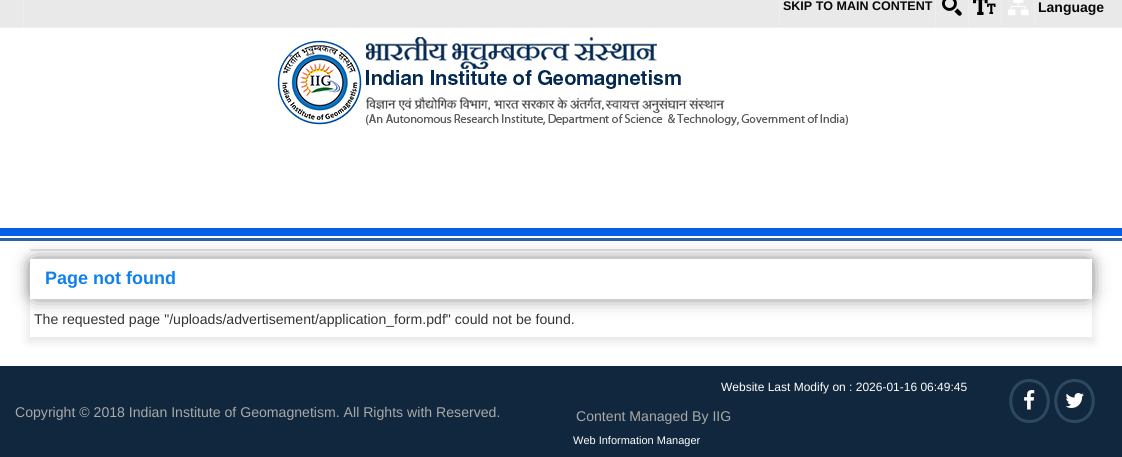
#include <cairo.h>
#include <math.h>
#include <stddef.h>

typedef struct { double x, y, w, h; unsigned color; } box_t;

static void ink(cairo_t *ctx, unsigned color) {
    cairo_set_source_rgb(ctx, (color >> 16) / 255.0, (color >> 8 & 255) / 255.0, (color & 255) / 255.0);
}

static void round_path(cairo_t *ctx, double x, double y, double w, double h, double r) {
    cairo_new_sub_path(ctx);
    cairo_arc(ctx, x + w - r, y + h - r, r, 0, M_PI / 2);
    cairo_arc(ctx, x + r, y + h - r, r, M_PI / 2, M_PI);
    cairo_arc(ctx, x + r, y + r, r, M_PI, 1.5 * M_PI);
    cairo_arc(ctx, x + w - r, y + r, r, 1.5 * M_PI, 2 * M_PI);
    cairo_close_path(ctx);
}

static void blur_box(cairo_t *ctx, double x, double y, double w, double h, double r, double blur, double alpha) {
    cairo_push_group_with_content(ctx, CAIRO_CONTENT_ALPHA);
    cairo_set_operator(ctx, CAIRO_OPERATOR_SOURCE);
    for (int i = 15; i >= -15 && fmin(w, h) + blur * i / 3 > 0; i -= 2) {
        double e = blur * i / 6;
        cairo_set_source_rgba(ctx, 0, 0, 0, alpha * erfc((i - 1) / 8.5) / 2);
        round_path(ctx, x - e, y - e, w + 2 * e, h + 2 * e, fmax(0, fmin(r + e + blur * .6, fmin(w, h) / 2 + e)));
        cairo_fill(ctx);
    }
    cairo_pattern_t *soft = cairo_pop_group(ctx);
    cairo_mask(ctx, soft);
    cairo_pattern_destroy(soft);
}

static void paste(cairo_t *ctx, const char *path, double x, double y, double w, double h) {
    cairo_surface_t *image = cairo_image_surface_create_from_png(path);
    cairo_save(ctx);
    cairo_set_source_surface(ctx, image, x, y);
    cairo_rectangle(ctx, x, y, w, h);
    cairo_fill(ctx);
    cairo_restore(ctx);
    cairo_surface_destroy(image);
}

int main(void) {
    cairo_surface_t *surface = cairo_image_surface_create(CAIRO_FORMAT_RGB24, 1122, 457);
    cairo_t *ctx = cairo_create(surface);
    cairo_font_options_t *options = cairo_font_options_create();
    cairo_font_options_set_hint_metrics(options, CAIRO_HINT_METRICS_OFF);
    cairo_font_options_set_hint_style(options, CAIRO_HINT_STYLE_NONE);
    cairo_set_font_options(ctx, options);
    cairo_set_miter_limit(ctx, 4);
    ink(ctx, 0xFFFFFF);
    cairo_paint(ctx);
    {
        static const box_t items[] = {
            {0, 0, 1122, 27, 0xE9E9E9},
            {0, 27, 1122, 1, 0xEEEEEE},
            {23, 0, 1, 27, 0xEEEEEE},
            {779, 0, 1, 27, 0xEEEEEE},
        };
        for (size_t i = 0; i < sizeof items / sizeof *items; i++) {
            ink(ctx, items[i].color);
            cairo_rectangle(ctx, items[i].x, items[i].y, items[i].w, items[i].h);
            cairo_fill(ctx);
        }
    }
    cairo_select_font_face(ctx, "Liberation Sans", CAIRO_FONT_SLANT_NORMAL, CAIRO_FONT_WEIGHT_BOLD);
    cairo_set_font_size(ctx, 12.5);
    ink(ctx, 0x080808);
    cairo_move_to(ctx, 783, 10);
    cairo_show_text(ctx, "SKIP TO MAIN CONTENT");
    ink(ctx, 0xEEEEEE);
    cairo_rectangle(ctx, 935, 0, 1, 27);
    cairo_fill(ctx);
    paste(ctx, "media/1.png", 942, 0, 20, 16);
    cairo_rectangle(ctx, 968, 0, 1, 27);
    cairo_fill(ctx);
    paste(ctx, "media/2.png", 973, 0, 23, 15);
    cairo_rectangle(ctx, 1001, 0, 1, 27);
    cairo_fill(ctx);
    paste(ctx, "media/3.png", 1008, 0, 21, 16);
    cairo_rectangle(ctx, 1034, 0, 1, 27);
    cairo_fill(ctx);
    cairo_set_font_size(ctx, 14);
    ink(ctx, 0x080808);
    cairo_move_to(ctx, 1038, 12);
    cairo_show_text(ctx, "Language");
    paste(ctx, "media/4.png", 277, 37, 571, 89);
    {
        static const box_t items[] = {
            {0, 228, 1122, 8, 0x035FE9},
            {0, 238, 1122, 3, 0x2863A9},
            {30, 249, 1062, 2, 0xE6E6E6},
        };
        for (size_t i = 0; i < sizeof items / sizeof *items; i++) {
            ink(ctx, items[i].color);
            cairo_rectangle(ctx, items[i].x, items[i].y, items[i].w, items[i].h);
            cairo_fill(ctx);
        }
    }
    cairo_save(ctx);
    cairo_set_fill_rule(ctx, CAIRO_FILL_RULE_EVEN_ODD);
    cairo_new_path(ctx);
    cairo_move_to(ctx, 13, 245);
    cairo_line_to(ctx, 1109, 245);
    cairo_line_to(ctx, 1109, 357);
    cairo_line_to(ctx, 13, 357);
    cairo_close_path(ctx);
    cairo_move_to(ctx, 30, 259);
    cairo_line_to(ctx, 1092, 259);
    cairo_line_to(ctx, 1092, 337);
    cairo_line_to(ctx, 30, 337);
    cairo_close_path(ctx);
    cairo_clip(ctx);
    ink(ctx, 0xE6E6E6);
    blur_box(ctx, 28, 260, 1066, 82, 0, 4.5, 1);
    cairo_restore(ctx);
    cairo_save(ctx);
    cairo_set_fill_rule(ctx, CAIRO_FILL_RULE_EVEN_ODD);
    cairo_new_path(ctx);
    cairo_move_to(ctx, 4, 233);
    cairo_line_to(ctx, 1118, 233);
    cairo_line_to(ctx, 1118, 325);
    cairo_line_to(ctx, 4, 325);
    cairo_close_path(ctx);
    cairo_move_to(ctx, 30, 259);
    cairo_line_to(ctx, 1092, 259);
    cairo_line_to(ctx, 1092, 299);
    cairo_line_to(ctx, 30, 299);
    cairo_close_path(ctx);
    cairo_clip(ctx);
    ink(ctx, 0x3A3A3A);
    blur_box(ctx, 35, 264, 1052, 30, 0, 10, 1);
    cairo_restore(ctx);
    cairo_set_font_size(ctx, 18);
    ink(ctx, 0x1081EA);
    cairo_move_to(ctx, 45, 284);
    cairo_show_text(ctx, "Page not found");
    cairo_select_font_face(ctx, "Liberation Sans", CAIRO_FONT_SLANT_NORMAL, CAIRO_FONT_WEIGHT_NORMAL);
    cairo_set_font_size(ctx, 14.1);
    ink(ctx, 0x333333);
    cairo_move_to(ctx, 34, 324);
    cairo_show_text(ctx, "The requested page \"/uploads/advertisement/application_form.pdf\" could not be found.");
    ink(ctx, 0x10273D);
    cairo_rectangle(ctx, 0, 366, 1122, 91);
    cairo_fill(ctx);
    ink(ctx, 0xA9A9A9);
    cairo_move_to(ctx, 15, 417);
    cairo_show_text(ctx, "Copyright © 2018 Indian Institute of Geomagnetism. All Rights with Reserved.");
    cairo_set_font_size(ctx, 12);
    ink(ctx, 0xFFFFFF);
    cairo_move_to(ctx, 721, 391);
    cairo_show_text(ctx, "Website Last Modify on : 2026-01-16 06:49:45");
    cairo_set_font_size(ctx, 14.1);
    ink(ctx, 0xA9A9A9);
    cairo_move_to(ctx, 576, 421);
    cairo_show_text(ctx, "Content Managed By IIG");
    cairo_set_font_size(ctx, 11);
    ink(ctx, 0xFFFFFF);
    cairo_move_to(ctx, 573, 444);
    cairo_show_text(ctx, "Web Information Manager");
    cairo_new_path(ctx);
    cairo_move_to(ctx, 1029.5, 380.5);
    cairo_curve_to(ctx, 1054.5, 380.5, 1054.5, 421.5, 1029.5, 421.5);
    cairo_curve_to(ctx, 1004.5, 421.5, 1004.5, 380.5, 1029.5, 380.5);
    cairo_close_path(ctx);
    ink(ctx, 0x2D4962);
    cairo_set_line_width(ctx, 3);
    cairo_stroke(ctx);
    paste(ctx, "media/5.png", 1024, 390, 11, 20);
    cairo_new_path(ctx);
    cairo_move_to(ctx, 1074.5, 380.5);
    cairo_curve_to(ctx, 1099.5, 380.5, 1099.5, 421.5, 1074.5, 421.5);
    cairo_curve_to(ctx, 1049.5, 421.5, 1049.5, 380.5, 1074.5, 380.5);
    cairo_close_path(ctx);
    cairo_stroke(ctx);
    paste(ctx, "media/6.png", 1065, 393, 19, 15);
    cairo_surface_write_to_png(surface, "image.png");
    cairo_font_options_destroy(options);
    cairo_destroy(ctx);
    cairo_surface_destroy(surface);
    return 0;
}
